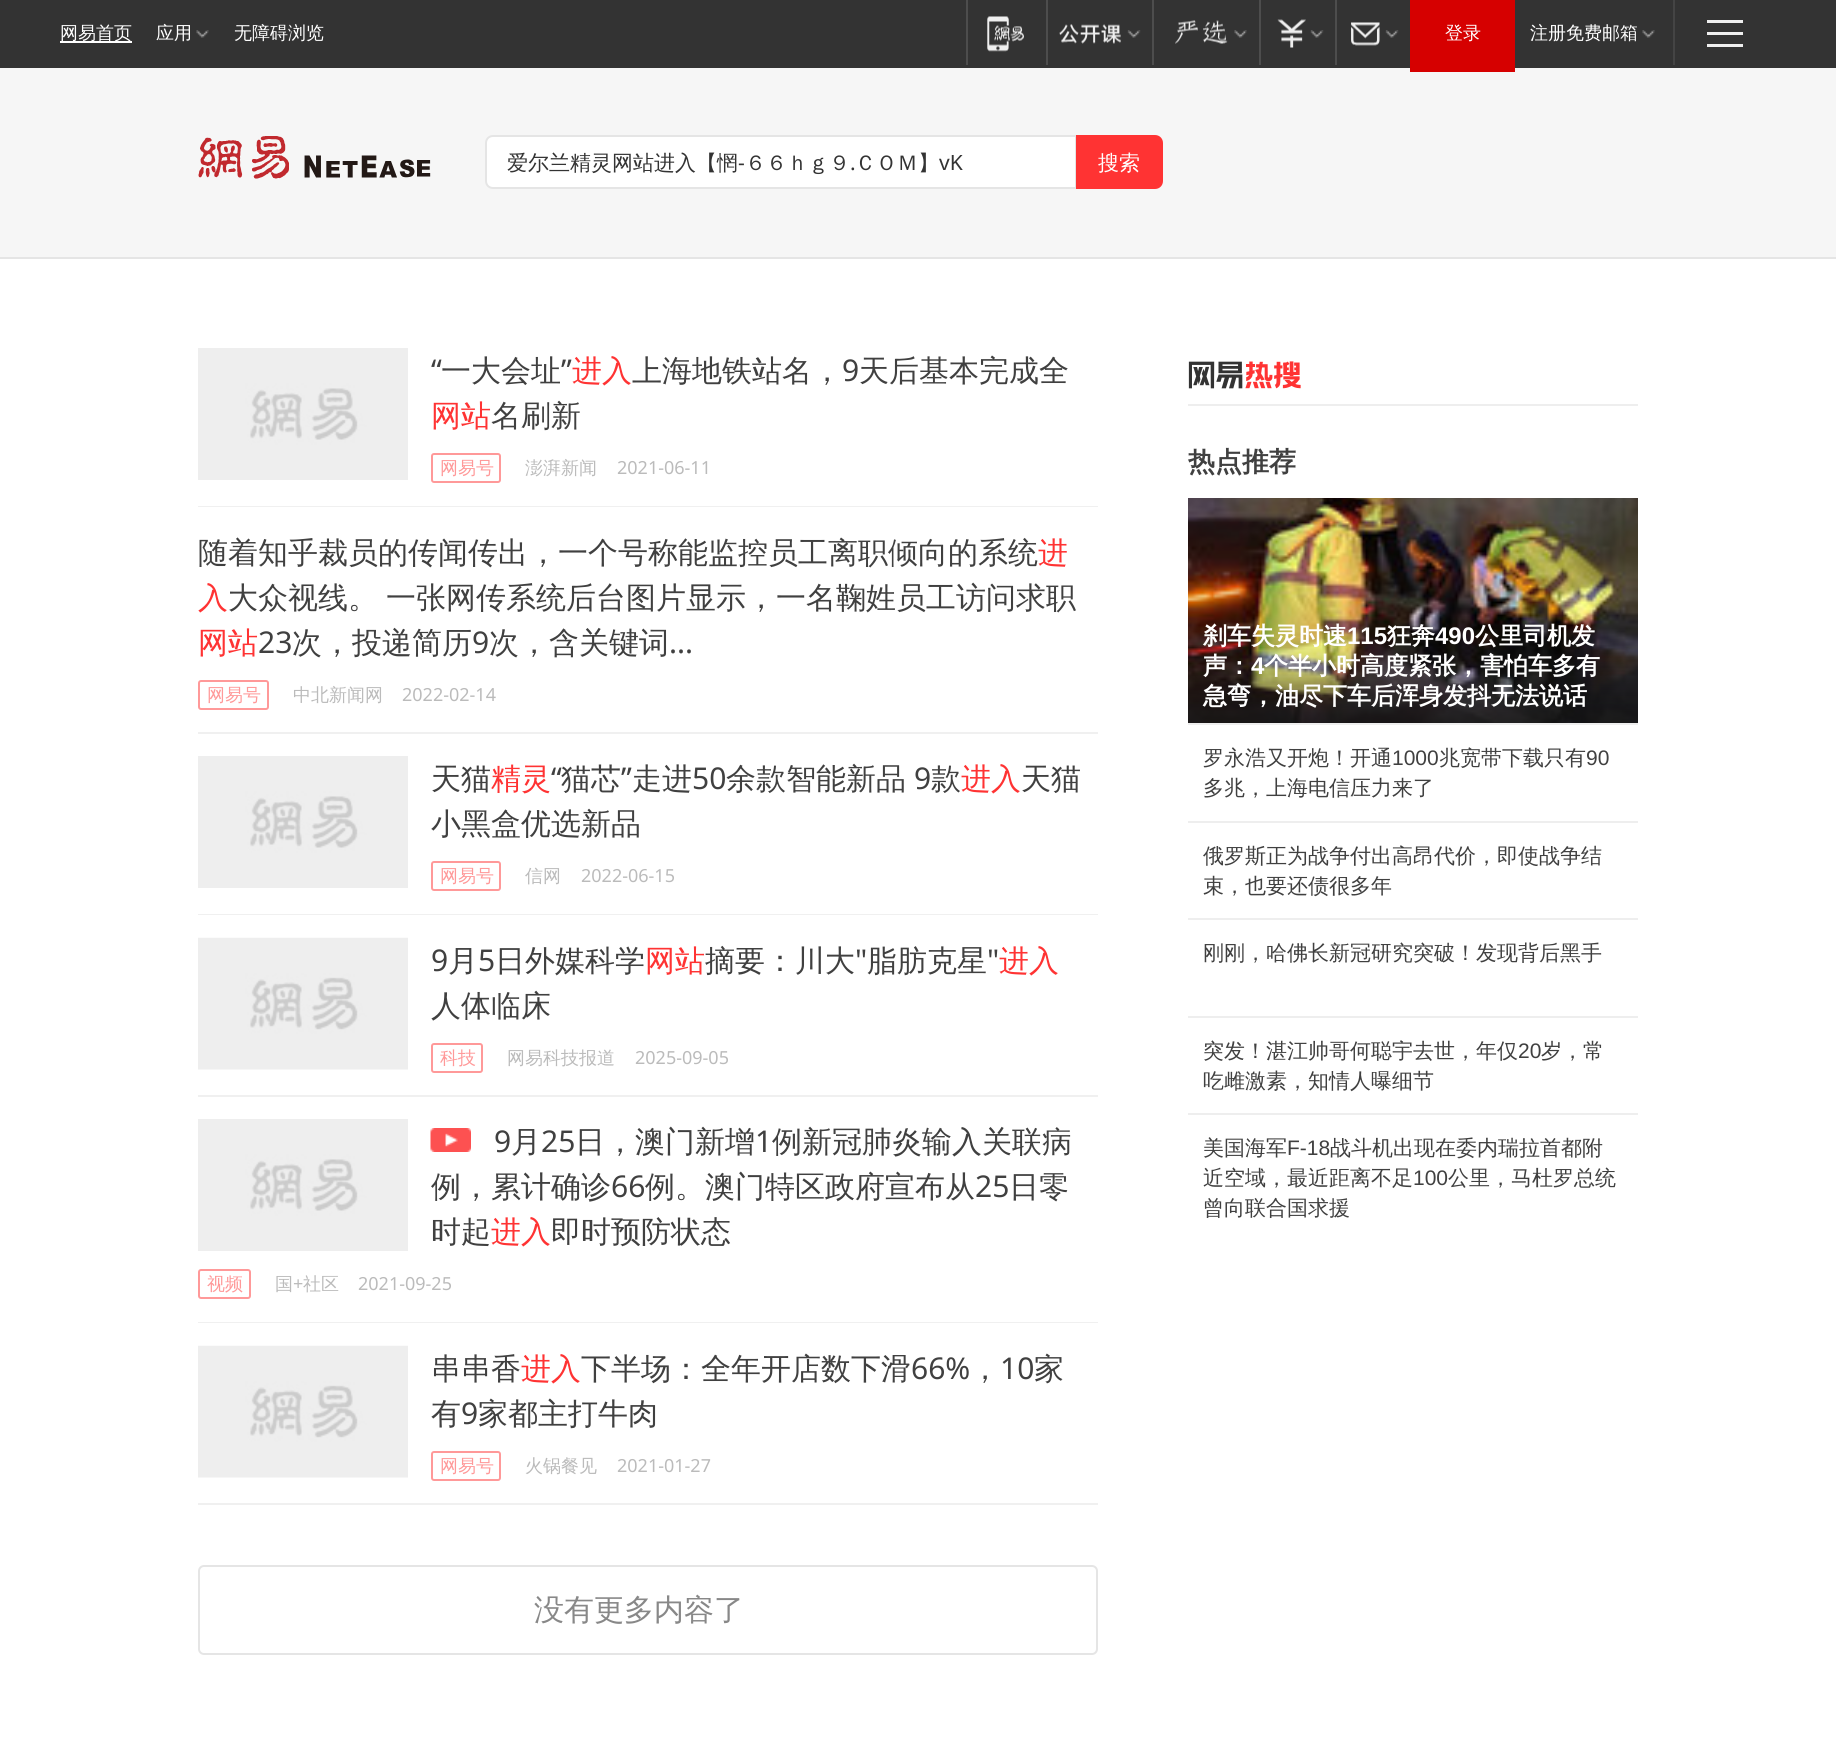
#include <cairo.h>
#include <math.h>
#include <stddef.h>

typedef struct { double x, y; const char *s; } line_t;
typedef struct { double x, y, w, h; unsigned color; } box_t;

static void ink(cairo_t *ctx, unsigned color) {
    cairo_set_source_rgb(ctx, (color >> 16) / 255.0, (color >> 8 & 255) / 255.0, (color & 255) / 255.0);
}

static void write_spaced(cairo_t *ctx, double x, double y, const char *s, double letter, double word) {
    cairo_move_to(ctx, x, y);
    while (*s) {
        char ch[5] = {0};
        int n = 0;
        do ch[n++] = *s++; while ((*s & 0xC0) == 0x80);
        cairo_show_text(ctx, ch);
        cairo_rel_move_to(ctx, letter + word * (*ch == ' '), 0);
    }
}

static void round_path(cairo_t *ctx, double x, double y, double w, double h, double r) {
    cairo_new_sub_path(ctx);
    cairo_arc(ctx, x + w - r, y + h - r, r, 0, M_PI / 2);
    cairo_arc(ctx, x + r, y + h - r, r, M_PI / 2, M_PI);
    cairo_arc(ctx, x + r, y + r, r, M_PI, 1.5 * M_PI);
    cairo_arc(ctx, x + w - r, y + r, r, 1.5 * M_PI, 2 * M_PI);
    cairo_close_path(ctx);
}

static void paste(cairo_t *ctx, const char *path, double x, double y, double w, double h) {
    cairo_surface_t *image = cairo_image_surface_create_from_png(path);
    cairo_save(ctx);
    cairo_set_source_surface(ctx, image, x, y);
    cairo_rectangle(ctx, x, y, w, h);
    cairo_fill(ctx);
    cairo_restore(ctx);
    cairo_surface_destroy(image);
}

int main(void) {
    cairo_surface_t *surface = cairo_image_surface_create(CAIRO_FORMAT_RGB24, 1836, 1746);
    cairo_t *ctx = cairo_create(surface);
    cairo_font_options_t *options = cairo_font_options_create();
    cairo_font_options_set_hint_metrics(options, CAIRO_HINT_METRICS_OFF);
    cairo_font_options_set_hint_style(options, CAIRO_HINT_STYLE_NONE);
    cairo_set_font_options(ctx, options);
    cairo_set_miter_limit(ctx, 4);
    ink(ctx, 0xFFFFFF);
    cairo_paint(ctx);
    ink(ctx, 0x333333);
    cairo_rectangle(ctx, 0, 0, 1836, 68);
    cairo_fill(ctx);
    ink(ctx, 0xFFFFFF);
    cairo_rectangle(ctx, 60, 41, 72, 2);
    cairo_fill(ctx);
    cairo_select_font_face(ctx, "WenQuanYi Zen Hei Medium", CAIRO_FONT_SLANT_NORMAL, CAIRO_FONT_WEIGHT_NORMAL);
    cairo_set_font_size(ctx, 18);
    cairo_move_to(ctx, 60, 39);
    cairo_show_text(ctx, "网易首页");
    cairo_move_to(ctx, 156, 39);
    cairo_show_text(ctx, "应用");
    paste(ctx, "media/1.png", 196, 30, 13, 8);
    cairo_move_to(ctx, 234, 39);
    cairo_show_text(ctx, "无障碍浏览");
    ink(ctx, 0x4D4D4D);
    cairo_rectangle(ctx, 966, 0, 2, 65);
    cairo_fill(ctx);
    paste(ctx, "media/2.png", 987, 16, 37, 36);
    cairo_rectangle(ctx, 1046, 0, 2, 65);
    cairo_fill(ctx);
    paste(ctx, "media/3.png", 1059, 24, 62, 20);
    paste(ctx, "media/4.png", 1127, 30, 14, 8);
    cairo_rectangle(ctx, 1152, 0, 2, 65);
    cairo_fill(ctx);
    paste(ctx, "media/5.png", 1175, 20, 53, 24);
    paste(ctx, "media/1.png", 1234, 30, 13, 8);
    cairo_rectangle(ctx, 1259, 0, 2, 65);
    cairo_fill(ctx);
    paste(ctx, "media/6.png", 1277, 19, 29, 29);
    paste(ctx, "media/4.png", 1310, 30, 14, 8);
    cairo_rectangle(ctx, 1335, 0, 2, 65);
    cairo_fill(ctx);
    paste(ctx, "media/7.png", 1351, 22, 29, 24);
    paste(ctx, "media/4.png", 1385, 30, 14, 8);
    ink(ctx, 0xF6F6F6);
    cairo_rectangle(ctx, 0, 68, 1836, 189);
    cairo_fill(ctx);
    ink(ctx, 0xD60000);
    cairo_rectangle(ctx, 1410, 0, 105, 72);
    cairo_fill(ctx);
    ink(ctx, 0xFFFFFF);
    cairo_move_to(ctx, 1445, 39);
    cairo_show_text(ctx, "登录");
    cairo_move_to(ctx, 1530, 39);
    cairo_show_text(ctx, "注册免费邮箱");
    paste(ctx, "media/1.png", 1642, 30, 13, 8);
    {
        static const box_t items[] = {
            {1673, 0, 2, 65, 0x444444},
            {1707, 20, 36, 3, 0xEFEFEF},
            {1707, 32, 36, 3, 0xEFEFEF},
            {1707, 44, 36, 3, 0xEFEFEF},
            {0, 257, 1836, 2, 0xE5E5E5},
        };
        for (size_t i = 0; i < sizeof items / sizeof *items; i++) {
            ink(ctx, items[i].color);
            cairo_rectangle(ctx, items[i].x, items[i].y, items[i].w, items[i].h);
            cairo_fill(ctx);
        }
    }
    paste(ctx, "media/8.png", 198, 136, 233, 43);
    ink(ctx, 0xFFFFFF);
    cairo_new_path(ctx);
    cairo_move_to(ctx, 493, 136);
    cairo_line_to(ctx, 1076, 136);
    cairo_line_to(ctx, 1076, 188);
    cairo_line_to(ctx, 493, 188);
    cairo_curve_to(ctx, 489, 188, 486, 185, 486, 181);
    cairo_line_to(ctx, 486, 143);
    cairo_curve_to(ctx, 486, 139, 489, 136, 493, 136);
    cairo_close_path(ctx);
    cairo_fill_preserve(ctx);
    ink(ctx, 0xE5E5E5);
    cairo_stroke(ctx);
    cairo_set_font_size(ctx, 21);
    ink(ctx, 0x333333);
    cairo_move_to(ctx, 507, 170);
    cairo_show_text(ctx, "爱尔兰精灵网站进入【惘");
    cairo_select_font_face(ctx, "Noto Sans", CAIRO_FONT_SLANT_NORMAL, CAIRO_FONT_WEIGHT_NORMAL);
    cairo_move_to(ctx, 738, 170);
    cairo_show_text(ctx, "-");
    cairo_select_font_face(ctx, "WenQuanYi Zen Hei Medium", CAIRO_FONT_SLANT_NORMAL, CAIRO_FONT_WEIGHT_NORMAL);
    cairo_move_to(ctx, 745, 170);
    cairo_show_text(ctx, "６６ｈｇ９");
    cairo_move_to(ctx, 855, 170);
    cairo_show_text(ctx, "ＣＯＭ】");
    cairo_select_font_face(ctx, "Noto Sans", CAIRO_FONT_SLANT_NORMAL, CAIRO_FONT_WEIGHT_NORMAL);
    cairo_move_to(ctx, 939, 170);
    cairo_show_text(ctx, "vK");
    cairo_move_to(ctx, 850, 170);
    cairo_show_text(ctx, ".");
    ink(ctx, 0xFF3333);
    cairo_new_path(ctx);
    cairo_move_to(ctx, 1076, 135);
    cairo_line_to(ctx, 1155, 135);
    cairo_curve_to(ctx, 1159.5, 135, 1163, 138.5, 1163, 143);
    cairo_line_to(ctx, 1163, 181);
    cairo_curve_to(ctx, 1163, 185.5, 1159.5, 189, 1155, 189);
    cairo_line_to(ctx, 1076, 189);
    cairo_close_path(ctx);
    cairo_fill(ctx);
    cairo_select_font_face(ctx, "WenQuanYi Zen Hei Medium", CAIRO_FONT_SLANT_NORMAL, CAIRO_FONT_WEIGHT_NORMAL);
    ink(ctx, 0xFFFFFF);
    cairo_move_to(ctx, 1098, 170);
    cairo_show_text(ctx, "搜索");
    ink(ctx, 0xF0F0F0);
    cairo_rectangle(ctx, 198, 506, 900, 1);
    cairo_fill(ctx);
    paste(ctx, "media/9.png", 198, 348, 210, 132);
    cairo_select_font_face(ctx, "Noto Sans", CAIRO_FONT_SLANT_NORMAL, CAIRO_FONT_WEIGHT_NORMAL);
    cairo_set_font_size(ctx, 30);
    ink(ctx, 0x404040);
    cairo_move_to(ctx, 431, 381);
    cairo_show_text(ctx, "“");
    cairo_select_font_face(ctx, "WenQuanYi Zen Hei Medium", CAIRO_FONT_SLANT_NORMAL, CAIRO_FONT_WEIGHT_NORMAL);
    cairo_move_to(ctx, 441, 381);
    cairo_show_text(ctx, "一大会址");
    cairo_select_font_face(ctx, "Noto Sans", CAIRO_FONT_SLANT_NORMAL, CAIRO_FONT_WEIGHT_NORMAL);
    cairo_move_to(ctx, 561, 381);
    cairo_show_text(ctx, "”");
    cairo_select_font_face(ctx, "WenQuanYi Zen Hei Medium", CAIRO_FONT_SLANT_NORMAL, CAIRO_FONT_WEIGHT_NORMAL);
    ink(ctx, 0xFF3333);
    cairo_move_to(ctx, 572, 381);
    cairo_show_text(ctx, "进入");
    ink(ctx, 0x404040);
    cairo_move_to(ctx, 632, 381);
    cairo_show_text(ctx, "上海地铁站名，");
    cairo_select_font_face(ctx, "Noto Sans", CAIRO_FONT_SLANT_NORMAL, CAIRO_FONT_WEIGHT_NORMAL);
    cairo_move_to(ctx, 842, 381);
    cairo_show_text(ctx, "9");
    cairo_select_font_face(ctx, "WenQuanYi Zen Hei Medium", CAIRO_FONT_SLANT_NORMAL, CAIRO_FONT_WEIGHT_NORMAL);
    cairo_move_to(ctx, 859, 381);
    cairo_show_text(ctx, "天后基本完成全");
    ink(ctx, 0xFF3333);
    cairo_move_to(ctx, 431, 426);
    cairo_show_text(ctx, "网站");
    ink(ctx, 0x404040);
    cairo_move_to(ctx, 491, 426);
    cairo_show_text(ctx, "名刷新");
    round_path(ctx, 432, 454, 68, 28, 2);
    ink(ctx, 0xFF9999);
    cairo_stroke(ctx);
    cairo_set_font_size(ctx, 18);
    cairo_move_to(ctx, 440, 474);
    cairo_show_text(ctx, "网易号");
    ink(ctx, 0xBBBBBB);
    cairo_move_to(ctx, 525, 474);
    cairo_show_text(ctx, "澎湃新闻");
    cairo_select_font_face(ctx, "Noto Sans", CAIRO_FONT_SLANT_NORMAL, CAIRO_FONT_WEIGHT_NORMAL);
    cairo_move_to(ctx, 617, 474);
    cairo_show_text(ctx, "2021-06-11");
    ink(ctx, 0xF0F0F0);
    cairo_rectangle(ctx, 198, 732, 900, 2);
    cairo_fill(ctx);
    cairo_select_font_face(ctx, "WenQuanYi Zen Hei Medium", CAIRO_FONT_SLANT_NORMAL, CAIRO_FONT_WEIGHT_NORMAL);
    cairo_set_font_size(ctx, 30);
    ink(ctx, 0x404040);
    cairo_move_to(ctx, 198, 563);
    cairo_show_text(ctx, "随着知乎裁员的传闻传出，一个号称能监控员工离职倾向的系统");
    ink(ctx, 0xFF3333);
    cairo_move_to(ctx, 1038, 563);
    cairo_show_text(ctx, "进");
    cairo_move_to(ctx, 198, 608);
    cairo_show_text(ctx, "入");
    ink(ctx, 0x404040);
    write_spaced(ctx, 228, 608, "大众视线。 一张网传系统后台图片显示，一名鞠姓员工访问求职", 0, -1);
    ink(ctx, 0xFF3333);
    cairo_move_to(ctx, 198, 653);
    cairo_show_text(ctx, "网站");
    cairo_select_font_face(ctx, "Noto Sans", CAIRO_FONT_SLANT_NORMAL, CAIRO_FONT_WEIGHT_NORMAL);
    ink(ctx, 0x404040);
    cairo_move_to(ctx, 258, 653);
    cairo_show_text(ctx, "23");
    cairo_select_font_face(ctx, "WenQuanYi Zen Hei Medium", CAIRO_FONT_SLANT_NORMAL, CAIRO_FONT_WEIGHT_NORMAL);
    cairo_move_to(ctx, 292, 653);
    cairo_show_text(ctx, "次，投递简历");
    cairo_select_font_face(ctx, "Noto Sans", CAIRO_FONT_SLANT_NORMAL, CAIRO_FONT_WEIGHT_NORMAL);
    cairo_move_to(ctx, 472, 653);
    cairo_show_text(ctx, "9");
    cairo_select_font_face(ctx, "WenQuanYi Zen Hei Medium", CAIRO_FONT_SLANT_NORMAL, CAIRO_FONT_WEIGHT_NORMAL);
    cairo_move_to(ctx, 489, 653);
    cairo_show_text(ctx, "次，含关键词");
    cairo_select_font_face(ctx, "Noto Sans", CAIRO_FONT_SLANT_NORMAL, CAIRO_FONT_WEIGHT_NORMAL);
    cairo_move_to(ctx, 669, 653);
    cairo_show_text(ctx, "...");
    round_path(ctx, 199, 681, 69, 28, 2);
    ink(ctx, 0xFF9999);
    cairo_stroke(ctx);
    cairo_select_font_face(ctx, "WenQuanYi Zen Hei Medium", CAIRO_FONT_SLANT_NORMAL, CAIRO_FONT_WEIGHT_NORMAL);
    cairo_set_font_size(ctx, 18);
    cairo_move_to(ctx, 207, 701);
    cairo_show_text(ctx, "网易号");
    ink(ctx, 0xBBBBBB);
    cairo_move_to(ctx, 293, 701);
    cairo_show_text(ctx, "中北新闻网");
    cairo_select_font_face(ctx, "Noto Sans", CAIRO_FONT_SLANT_NORMAL, CAIRO_FONT_WEIGHT_NORMAL);
    cairo_move_to(ctx, 402, 701);
    cairo_show_text(ctx, "2022-02-14");
    ink(ctx, 0xF0F0F0);
    cairo_rectangle(ctx, 198, 914, 900, 1);
    cairo_fill(ctx);
    paste(ctx, "media/9.png", 198, 756, 210, 132);
    cairo_select_font_face(ctx, "WenQuanYi Zen Hei Medium", CAIRO_FONT_SLANT_NORMAL, CAIRO_FONT_WEIGHT_NORMAL);
    cairo_set_font_size(ctx, 30);
    ink(ctx, 0x404040);
    cairo_move_to(ctx, 431, 789);
    cairo_show_text(ctx, "天猫");
    ink(ctx, 0xFF3333);
    cairo_move_to(ctx, 491, 789);
    cairo_show_text(ctx, "精灵");
    cairo_select_font_face(ctx, "Noto Sans", CAIRO_FONT_SLANT_NORMAL, CAIRO_FONT_WEIGHT_NORMAL);
    ink(ctx, 0x404040);
    cairo_move_to(ctx, 551, 789);
    cairo_show_text(ctx, "“");
    cairo_select_font_face(ctx, "WenQuanYi Zen Hei Medium", CAIRO_FONT_SLANT_NORMAL, CAIRO_FONT_WEIGHT_NORMAL);
    cairo_move_to(ctx, 561, 789);
    cairo_show_text(ctx, "猫芯");
    cairo_select_font_face(ctx, "Noto Sans", CAIRO_FONT_SLANT_NORMAL, CAIRO_FONT_WEIGHT_NORMAL);
    cairo_move_to(ctx, 621, 789);
    cairo_show_text(ctx, "”");
    cairo_select_font_face(ctx, "WenQuanYi Zen Hei Medium", CAIRO_FONT_SLANT_NORMAL, CAIRO_FONT_WEIGHT_NORMAL);
    cairo_move_to(ctx, 632, 789);
    cairo_show_text(ctx, "走进");
    cairo_select_font_face(ctx, "Noto Sans", CAIRO_FONT_SLANT_NORMAL, CAIRO_FONT_WEIGHT_NORMAL);
    cairo_move_to(ctx, 692, 789);
    cairo_show_text(ctx, "50");
    cairo_select_font_face(ctx, "WenQuanYi Zen Hei Medium", CAIRO_FONT_SLANT_NORMAL, CAIRO_FONT_WEIGHT_NORMAL);
    cairo_move_to(ctx, 726, 789);
    cairo_show_text(ctx, "余款智能新品");
    cairo_select_font_face(ctx, "Noto Sans", CAIRO_FONT_SLANT_NORMAL, CAIRO_FONT_WEIGHT_NORMAL);
    cairo_move_to(ctx, 914, 789);
    cairo_show_text(ctx, "9");
    cairo_select_font_face(ctx, "WenQuanYi Zen Hei Medium", CAIRO_FONT_SLANT_NORMAL, CAIRO_FONT_WEIGHT_NORMAL);
    cairo_move_to(ctx, 931, 789);
    cairo_show_text(ctx, "款");
    ink(ctx, 0xFF3333);
    cairo_move_to(ctx, 961, 789);
    cairo_show_text(ctx, "进入");
    ink(ctx, 0x404040);
    cairo_move_to(ctx, 1021, 789);
    cairo_show_text(ctx, "天猫");
    cairo_move_to(ctx, 431, 834);
    cairo_show_text(ctx, "小黑盒优选新品");
    round_path(ctx, 432, 862, 68, 28, 2);
    ink(ctx, 0xFF9999);
    cairo_stroke(ctx);
    cairo_set_font_size(ctx, 18);
    cairo_move_to(ctx, 440, 882);
    cairo_show_text(ctx, "网易号");
    ink(ctx, 0xBBBBBB);
    cairo_move_to(ctx, 525, 882);
    cairo_show_text(ctx, "信网");
    cairo_select_font_face(ctx, "Noto Sans", CAIRO_FONT_SLANT_NORMAL, CAIRO_FONT_WEIGHT_NORMAL);
    cairo_move_to(ctx, 581, 882);
    cairo_show_text(ctx, "2022-06-15");
    ink(ctx, 0xF0F0F0);
    cairo_rectangle(ctx, 198, 1095, 900, 2);
    cairo_fill(ctx);
    ink(ctx, 0xF6F6F6);
    cairo_rectangle(ctx, 198, 1069, 210, 1);
    cairo_fill(ctx);
    paste(ctx, "media/10.png", 198, 937, 210, 132);
    cairo_set_font_size(ctx, 30);
    ink(ctx, 0x404040);
    cairo_move_to(ctx, 431, 971);
    cairo_show_text(ctx, "9");
    cairo_select_font_face(ctx, "WenQuanYi Zen Hei Medium", CAIRO_FONT_SLANT_NORMAL, CAIRO_FONT_WEIGHT_NORMAL);
    cairo_move_to(ctx, 448, 971);
    cairo_show_text(ctx, "月");
    cairo_select_font_face(ctx, "Noto Sans", CAIRO_FONT_SLANT_NORMAL, CAIRO_FONT_WEIGHT_NORMAL);
    cairo_move_to(ctx, 478, 971);
    cairo_show_text(ctx, "5");
    cairo_select_font_face(ctx, "WenQuanYi Zen Hei Medium", CAIRO_FONT_SLANT_NORMAL, CAIRO_FONT_WEIGHT_NORMAL);
    cairo_move_to(ctx, 495, 971);
    cairo_show_text(ctx, "日外媒科学");
    ink(ctx, 0xFF3333);
    cairo_move_to(ctx, 645, 971);
    cairo_show_text(ctx, "网站");
    ink(ctx, 0x404040);
    cairo_move_to(ctx, 705, 971);
    cairo_show_text(ctx, "摘要：川大");
    cairo_select_font_face(ctx, "Noto Sans", CAIRO_FONT_SLANT_NORMAL, CAIRO_FONT_WEIGHT_NORMAL);
    cairo_move_to(ctx, 855, 971);
    cairo_show_text(ctx, "\"");
    cairo_select_font_face(ctx, "WenQuanYi Zen Hei Medium", CAIRO_FONT_SLANT_NORMAL, CAIRO_FONT_WEIGHT_NORMAL);
    cairo_move_to(ctx, 867, 971);
    cairo_show_text(ctx, "脂肪克星");
    cairo_select_font_face(ctx, "Noto Sans", CAIRO_FONT_SLANT_NORMAL, CAIRO_FONT_WEIGHT_NORMAL);
    cairo_move_to(ctx, 987, 971);
    cairo_show_text(ctx, "\"");
    cairo_select_font_face(ctx, "WenQuanYi Zen Hei Medium", CAIRO_FONT_SLANT_NORMAL, CAIRO_FONT_WEIGHT_NORMAL);
    ink(ctx, 0xFF3333);
    cairo_move_to(ctx, 999, 971);
    cairo_show_text(ctx, "进入");
    ink(ctx, 0x404040);
    cairo_move_to(ctx, 431, 1016);
    cairo_show_text(ctx, "人体临床");
    round_path(ctx, 432, 1044, 50, 28, 2);
    ink(ctx, 0xFF9999);
    cairo_stroke(ctx);
    cairo_set_font_size(ctx, 18);
    cairo_move_to(ctx, 440, 1064);
    cairo_show_text(ctx, "科技");
    ink(ctx, 0xBBBBBB);
    cairo_move_to(ctx, 507, 1064);
    cairo_show_text(ctx, "网易科技报道");
    cairo_select_font_face(ctx, "Noto Sans", CAIRO_FONT_SLANT_NORMAL, CAIRO_FONT_WEIGHT_NORMAL);
    cairo_move_to(ctx, 635, 1064);
    cairo_show_text(ctx, "2025-09-05");
    ink(ctx, 0xF0F0F0);
    cairo_rectangle(ctx, 198, 1322, 900, 1);
    cairo_fill(ctx);
    paste(ctx, "media/9.png", 198, 1119, 210, 132);
    paste(ctx, "media/11.png", 430, 1128, 41, 24);
    cairo_set_font_size(ctx, 30);
    ink(ctx, 0x404040);
    cairo_move_to(ctx, 494, 1152);
    cairo_show_text(ctx, "9");
    cairo_select_font_face(ctx, "WenQuanYi Zen Hei Medium", CAIRO_FONT_SLANT_NORMAL, CAIRO_FONT_WEIGHT_NORMAL);
    cairo_move_to(ctx, 511, 1152);
    cairo_show_text(ctx, "月");
    cairo_select_font_face(ctx, "Noto Sans", CAIRO_FONT_SLANT_NORMAL, CAIRO_FONT_WEIGHT_NORMAL);
    cairo_move_to(ctx, 541, 1152);
    cairo_show_text(ctx, "25");
    cairo_select_font_face(ctx, "WenQuanYi Zen Hei Medium", CAIRO_FONT_SLANT_NORMAL, CAIRO_FONT_WEIGHT_NORMAL);
    cairo_move_to(ctx, 575, 1152);
    cairo_show_text(ctx, "日，澳门新增");
    cairo_select_font_face(ctx, "Noto Sans", CAIRO_FONT_SLANT_NORMAL, CAIRO_FONT_WEIGHT_NORMAL);
    cairo_move_to(ctx, 755, 1152);
    cairo_show_text(ctx, "1");
    cairo_select_font_face(ctx, "WenQuanYi Zen Hei Medium", CAIRO_FONT_SLANT_NORMAL, CAIRO_FONT_WEIGHT_NORMAL);
    cairo_move_to(ctx, 772, 1152);
    cairo_show_text(ctx, "例新冠肺炎输入关联病");
    cairo_move_to(ctx, 431, 1197);
    cairo_show_text(ctx, "例，累计确诊");
    cairo_select_font_face(ctx, "Noto Sans", CAIRO_FONT_SLANT_NORMAL, CAIRO_FONT_WEIGHT_NORMAL);
    cairo_move_to(ctx, 611, 1197);
    cairo_show_text(ctx, "66");
    cairo_select_font_face(ctx, "WenQuanYi Zen Hei Medium", CAIRO_FONT_SLANT_NORMAL, CAIRO_FONT_WEIGHT_NORMAL);
    cairo_move_to(ctx, 645, 1197);
    cairo_show_text(ctx, "例。澳门特区政府宣布从");
    cairo_select_font_face(ctx, "Noto Sans", CAIRO_FONT_SLANT_NORMAL, CAIRO_FONT_WEIGHT_NORMAL);
    cairo_move_to(ctx, 975, 1197);
    cairo_show_text(ctx, "25");
    cairo_select_font_face(ctx, "WenQuanYi Zen Hei Medium", CAIRO_FONT_SLANT_NORMAL, CAIRO_FONT_WEIGHT_NORMAL);
    cairo_move_to(ctx, 1009, 1197);
    cairo_show_text(ctx, "日零");
    cairo_move_to(ctx, 431, 1242);
    cairo_show_text(ctx, "时起");
    ink(ctx, 0xFF3333);
    cairo_move_to(ctx, 491, 1242);
    cairo_show_text(ctx, "进入");
    ink(ctx, 0x404040);
    cairo_move_to(ctx, 551, 1242);
    cairo_show_text(ctx, "即时预防状态");
    round_path(ctx, 199, 1270, 51, 28, 2);
    ink(ctx, 0xFF9999);
    cairo_stroke(ctx);
    cairo_set_font_size(ctx, 18);
    cairo_move_to(ctx, 207, 1290);
    cairo_show_text(ctx, "视频");
    ink(ctx, 0xBBBBBB);
    cairo_move_to(ctx, 275, 1290);
    cairo_show_text(ctx, "国");
    cairo_select_font_face(ctx, "Noto Sans", CAIRO_FONT_SLANT_NORMAL, CAIRO_FONT_WEIGHT_NORMAL);
    cairo_move_to(ctx, 293, 1290);
    cairo_show_text(ctx, "+");
    cairo_select_font_face(ctx, "WenQuanYi Zen Hei Medium", CAIRO_FONT_SLANT_NORMAL, CAIRO_FONT_WEIGHT_NORMAL);
    cairo_move_to(ctx, 303, 1290);
    cairo_show_text(ctx, "社区");
    cairo_select_font_face(ctx, "Noto Sans", CAIRO_FONT_SLANT_NORMAL, CAIRO_FONT_WEIGHT_NORMAL);
    cairo_move_to(ctx, 358, 1290);
    cairo_show_text(ctx, "2021-09-25");
    ink(ctx, 0xF0F0F0);
    cairo_rectangle(ctx, 198, 1503, 900, 2);
    cairo_fill(ctx);
    ink(ctx, 0xF6F6F6);
    cairo_rectangle(ctx, 198, 1477, 210, 1);
    cairo_fill(ctx);
    paste(ctx, "media/10.png", 198, 1345, 210, 132);
    cairo_select_font_face(ctx, "WenQuanYi Zen Hei Medium", CAIRO_FONT_SLANT_NORMAL, CAIRO_FONT_WEIGHT_NORMAL);
    cairo_set_font_size(ctx, 30);
    ink(ctx, 0x404040);
    cairo_move_to(ctx, 431, 1379);
    cairo_show_text(ctx, "串串香");
    ink(ctx, 0xFF3333);
    cairo_move_to(ctx, 521, 1379);
    cairo_show_text(ctx, "进入");
    ink(ctx, 0x404040);
    cairo_move_to(ctx, 581, 1379);
    cairo_show_text(ctx, "下半场：全年开店数下滑");
    cairo_select_font_face(ctx, "Noto Sans", CAIRO_FONT_SLANT_NORMAL, CAIRO_FONT_WEIGHT_NORMAL);
    cairo_move_to(ctx, 911, 1379);
    cairo_show_text(ctx, "66%");
    cairo_select_font_face(ctx, "WenQuanYi Zen Hei Medium", CAIRO_FONT_SLANT_NORMAL, CAIRO_FONT_WEIGHT_NORMAL);
    cairo_move_to(ctx, 970, 1379);
    cairo_show_text(ctx, "，");
    cairo_select_font_face(ctx, "Noto Sans", CAIRO_FONT_SLANT_NORMAL, CAIRO_FONT_WEIGHT_NORMAL);
    cairo_move_to(ctx, 1000, 1379);
    cairo_show_text(ctx, "10");
    cairo_select_font_face(ctx, "WenQuanYi Zen Hei Medium", CAIRO_FONT_SLANT_NORMAL, CAIRO_FONT_WEIGHT_NORMAL);
    cairo_move_to(ctx, 1034, 1379);
    cairo_show_text(ctx, "家");
    cairo_move_to(ctx, 431, 1424);
    cairo_show_text(ctx, "有");
    cairo_select_font_face(ctx, "Noto Sans", CAIRO_FONT_SLANT_NORMAL, CAIRO_FONT_WEIGHT_NORMAL);
    cairo_move_to(ctx, 461, 1424);
    cairo_show_text(ctx, "9");
    cairo_select_font_face(ctx, "WenQuanYi Zen Hei Medium", CAIRO_FONT_SLANT_NORMAL, CAIRO_FONT_WEIGHT_NORMAL);
    cairo_move_to(ctx, 478, 1424);
    cairo_show_text(ctx, "家都主打牛肉");
    round_path(ctx, 432, 1452, 68, 28, 2);
    ink(ctx, 0xFF9999);
    cairo_stroke(ctx);
    cairo_set_font_size(ctx, 18);
    cairo_move_to(ctx, 440, 1472);
    cairo_show_text(ctx, "网易号");
    ink(ctx, 0xBBBBBB);
    cairo_move_to(ctx, 525, 1472);
    cairo_show_text(ctx, "火锅餐见");
    cairo_select_font_face(ctx, "Noto Sans", CAIRO_FONT_SLANT_NORMAL, CAIRO_FONT_WEIGHT_NORMAL);
    cairo_move_to(ctx, 617, 1472);
    cairo_show_text(ctx, "2021-01-27");
    round_path(ctx, 199, 1566, 898, 88, 5);
    ink(ctx, 0xE5E5E5);
    cairo_stroke(ctx);
    cairo_select_font_face(ctx, "WenQuanYi Zen Hei Medium", CAIRO_FONT_SLANT_NORMAL, CAIRO_FONT_WEIGHT_NORMAL);
    cairo_set_font_size(ctx, 30);
    ink(ctx, 0x888888);
    cairo_move_to(ctx, 534, 1620);
    cairo_show_text(ctx, "没有更多内容了");
    paste(ctx, "media/12.png", 1188, 361, 113, 28);
    ink(ctx, 0xEEEEEE);
    cairo_rectangle(ctx, 1188, 404, 450, 2);
    cairo_fill(ctx);
    cairo_select_font_face(ctx, "WenQuanYi Zen Hei", CAIRO_FONT_SLANT_NORMAL, CAIRO_FONT_WEIGHT_BOLD);
    cairo_set_font_size(ctx, 27);
    ink(ctx, 0x404040);
    cairo_move_to(ctx, 1188, 471);
    cairo_show_text(ctx, "热点推荐");
    ink(ctx, 0xEEEEEE);
    cairo_rectangle(ctx, 1188, 723, 450, 2);
    cairo_fill(ctx);
    paste(ctx, "media/13.png", 1188, 498, 450, 225);
    paste(ctx, "media/14.png", 1188, 638, 450, 85);
    cairo_set_font_size(ctx, 24);
    ink(ctx, 0xFFFFFF);
    cairo_move_to(ctx, 1203, 644);
    cairo_show_text(ctx, "刹车失灵时速");
    cairo_select_font_face(ctx, "Liberation Sans", CAIRO_FONT_SLANT_NORMAL, CAIRO_FONT_WEIGHT_BOLD);
    cairo_move_to(ctx, 1347, 644);
    cairo_show_text(ctx, "115");
    cairo_select_font_face(ctx, "WenQuanYi Zen Hei", CAIRO_FONT_SLANT_NORMAL, CAIRO_FONT_WEIGHT_BOLD);
    cairo_move_to(ctx, 1387, 644);
    cairo_show_text(ctx, "狂奔");
    cairo_select_font_face(ctx, "Liberation Sans", CAIRO_FONT_SLANT_NORMAL, CAIRO_FONT_WEIGHT_BOLD);
    cairo_move_to(ctx, 1435, 644);
    cairo_show_text(ctx, "490");
    cairo_select_font_face(ctx, "WenQuanYi Zen Hei", CAIRO_FONT_SLANT_NORMAL, CAIRO_FONT_WEIGHT_BOLD);
    cairo_move_to(ctx, 1475, 644);
    cairo_show_text(ctx, "公里司机发");
    cairo_move_to(ctx, 1203, 674);
    cairo_show_text(ctx, "声：");
    cairo_select_font_face(ctx, "Liberation Sans", CAIRO_FONT_SLANT_NORMAL, CAIRO_FONT_WEIGHT_BOLD);
    cairo_move_to(ctx, 1251, 674);
    cairo_show_text(ctx, "4");
    cairo_select_font_face(ctx, "WenQuanYi Zen Hei", CAIRO_FONT_SLANT_NORMAL, CAIRO_FONT_WEIGHT_BOLD);
    cairo_move_to(ctx, 1264, 674);
    cairo_show_text(ctx, "个半小时高度紧张，害怕车多有");
    cairo_move_to(ctx, 1203, 704);
    cairo_show_text(ctx, "急弯，油尽下车后浑身发抖无法说话");
    ink(ctx, 0xEEEEEE);
    cairo_rectangle(ctx, 1188, 821, 450, 2);
    cairo_fill(ctx);
    cairo_select_font_face(ctx, "WenQuanYi Zen Hei Medium", CAIRO_FONT_SLANT_NORMAL, CAIRO_FONT_WEIGHT_NORMAL);
    cairo_set_font_size(ctx, 21);
    ink(ctx, 0x404040);
    cairo_move_to(ctx, 1203, 765);
    cairo_show_text(ctx, "罗永浩又开炮！开通");
    cairo_select_font_face(ctx, "Liberation Sans", CAIRO_FONT_SLANT_NORMAL, CAIRO_FONT_WEIGHT_NORMAL);
    cairo_move_to(ctx, 1392, 765);
    cairo_show_text(ctx, "1000");
    cairo_select_font_face(ctx, "WenQuanYi Zen Hei Medium", CAIRO_FONT_SLANT_NORMAL, CAIRO_FONT_WEIGHT_NORMAL);
    cairo_move_to(ctx, 1439, 765);
    cairo_show_text(ctx, "兆宽带下载只有");
    cairo_select_font_face(ctx, "Liberation Sans", CAIRO_FONT_SLANT_NORMAL, CAIRO_FONT_WEIGHT_NORMAL);
    cairo_move_to(ctx, 1586, 765);
    cairo_show_text(ctx, "90");
    cairo_select_font_face(ctx, "WenQuanYi Zen Hei Medium", CAIRO_FONT_SLANT_NORMAL, CAIRO_FONT_WEIGHT_NORMAL);
    cairo_move_to(ctx, 1203, 795);
    cairo_show_text(ctx, "多兆，上海电信压力来了");
    ink(ctx, 0xEEEEEE);
    cairo_rectangle(ctx, 1188, 918, 450, 2);
    cairo_fill(ctx);
    ink(ctx, 0x404040);
    cairo_move_to(ctx, 1203, 863);
    cairo_show_text(ctx, "俄罗斯正为战争付出高昂代价，即使战争结");
    cairo_move_to(ctx, 1203, 893);
    cairo_show_text(ctx, "束，也要还债很多年");
    ink(ctx, 0xEEEEEE);
    cairo_rectangle(ctx, 1188, 1016, 450, 2);
    cairo_fill(ctx);
    ink(ctx, 0x404040);
    cairo_move_to(ctx, 1203, 960);
    cairo_show_text(ctx, "刚刚，哈佛长新冠研究突破！发现背后黑手");
    ink(ctx, 0xEEEEEE);
    cairo_rectangle(ctx, 1188, 1113, 450, 2);
    cairo_fill(ctx);
    ink(ctx, 0x404040);
    cairo_move_to(ctx, 1203, 1058);
    cairo_show_text(ctx, "突发！湛江帅哥何聪宇去世，年仅");
    cairo_select_font_face(ctx, "Liberation Sans", CAIRO_FONT_SLANT_NORMAL, CAIRO_FONT_WEIGHT_NORMAL);
    cairo_move_to(ctx, 1518, 1058);
    cairo_show_text(ctx, "20");
    cairo_select_font_face(ctx, "WenQuanYi Zen Hei Medium", CAIRO_FONT_SLANT_NORMAL, CAIRO_FONT_WEIGHT_NORMAL);
    {
        static const line_t items[] = {
            {1541, 1058, "岁，常"},
            {1203, 1088, "吃雌激素，知情人曝细节"},
            {1203, 1155, "美国海军"},
        };
        for (size_t i = 0; i < sizeof items / sizeof *items; i++) {
            cairo_move_to(ctx, items[i].x, items[i].y);
            cairo_show_text(ctx, items[i].s);
        }
    }
    cairo_select_font_face(ctx, "Liberation Sans", CAIRO_FONT_SLANT_NORMAL, CAIRO_FONT_WEIGHT_NORMAL);
    cairo_move_to(ctx, 1287, 1155);
    cairo_show_text(ctx, "F-18");
    cairo_select_font_face(ctx, "WenQuanYi Zen Hei Medium", CAIRO_FONT_SLANT_NORMAL, CAIRO_FONT_WEIGHT_NORMAL);
    cairo_move_to(ctx, 1330, 1155);
    cairo_show_text(ctx, "战斗机出现在委内瑞拉首都附");
    cairo_move_to(ctx, 1203, 1185);
    cairo_show_text(ctx, "近空域，最近距离不足");
    cairo_select_font_face(ctx, "Liberation Sans", CAIRO_FONT_SLANT_NORMAL, CAIRO_FONT_WEIGHT_NORMAL);
    cairo_move_to(ctx, 1413, 1185);
    cairo_show_text(ctx, "100");
    cairo_select_font_face(ctx, "WenQuanYi Zen Hei Medium", CAIRO_FONT_SLANT_NORMAL, CAIRO_FONT_WEIGHT_NORMAL);
    cairo_move_to(ctx, 1448, 1185);
    cairo_show_text(ctx, "公里，马杜罗总统");
    cairo_move_to(ctx, 1203, 1215);
    cairo_show_text(ctx, "曾向联合国求援");
    cairo_surface_write_to_png(surface, "image.png");
    cairo_font_options_destroy(options);
    cairo_destroy(ctx);
    cairo_surface_destroy(surface);
    return 0;
}
